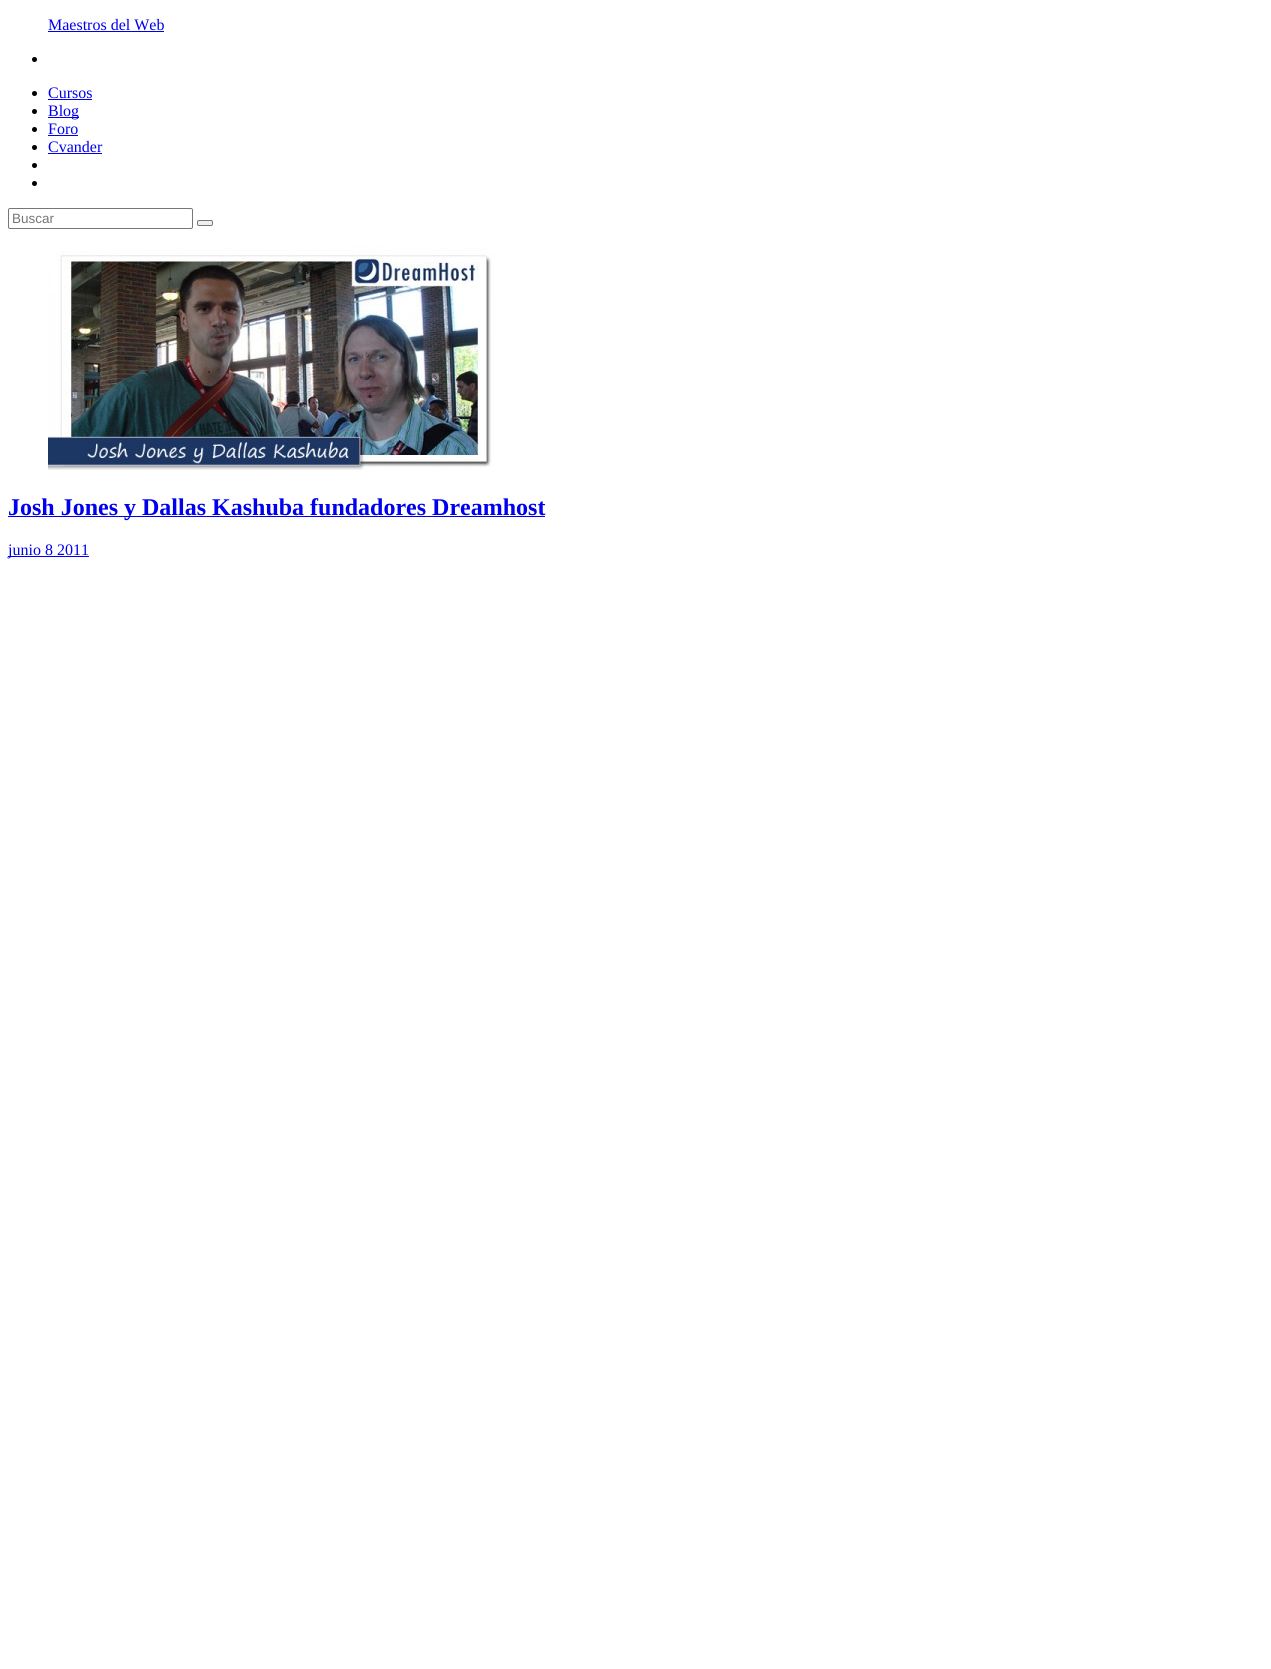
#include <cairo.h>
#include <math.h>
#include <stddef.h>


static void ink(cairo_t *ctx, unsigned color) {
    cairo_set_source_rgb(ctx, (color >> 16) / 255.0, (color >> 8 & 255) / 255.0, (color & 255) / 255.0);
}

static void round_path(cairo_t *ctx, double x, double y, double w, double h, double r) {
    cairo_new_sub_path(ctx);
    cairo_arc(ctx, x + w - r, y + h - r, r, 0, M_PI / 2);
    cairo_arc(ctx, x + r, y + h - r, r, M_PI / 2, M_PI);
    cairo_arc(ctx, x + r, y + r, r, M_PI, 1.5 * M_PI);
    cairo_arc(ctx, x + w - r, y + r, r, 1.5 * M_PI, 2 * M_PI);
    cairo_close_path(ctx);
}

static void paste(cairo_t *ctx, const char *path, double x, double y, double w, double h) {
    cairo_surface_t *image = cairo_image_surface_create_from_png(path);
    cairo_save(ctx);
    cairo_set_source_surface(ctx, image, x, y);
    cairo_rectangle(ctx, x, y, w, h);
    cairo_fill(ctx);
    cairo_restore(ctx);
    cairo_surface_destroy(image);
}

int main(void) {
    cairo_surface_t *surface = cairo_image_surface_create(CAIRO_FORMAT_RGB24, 1271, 1669);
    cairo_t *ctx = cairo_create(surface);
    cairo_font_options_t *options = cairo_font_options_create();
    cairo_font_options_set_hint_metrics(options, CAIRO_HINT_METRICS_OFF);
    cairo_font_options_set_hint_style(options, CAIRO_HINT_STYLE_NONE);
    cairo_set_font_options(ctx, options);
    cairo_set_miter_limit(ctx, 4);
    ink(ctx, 0xFFFFFF);
    cairo_paint(ctx);
    cairo_select_font_face(ctx, "Liberation Serif", CAIRO_FONT_SLANT_NORMAL, CAIRO_FONT_WEIGHT_NORMAL);
    cairo_set_font_size(ctx, 16);
    ink(ctx, 0x0000EE);
    cairo_move_to(ctx, 48, 30);
    cairo_show_text(ctx, "Maestros del Web");
    cairo_rectangle(ctx, 48, 31, 116, 1);
    cairo_fill(ctx);
    ink(ctx, 0x000000);
    cairo_arc(ctx, 34.5, 59.5, 2.5, 0, 2 * M_PI);
    cairo_fill(ctx);
    cairo_arc(ctx, 34.5, 93.5, 2.5, 0, 2 * M_PI);
    cairo_fill(ctx);
    ink(ctx, 0x0000EE);
    cairo_move_to(ctx, 48, 98);
    cairo_show_text(ctx, "Cursos");
    cairo_rectangle(ctx, 48, 99, 44, 1);
    cairo_fill(ctx);
    ink(ctx, 0x000000);
    cairo_arc(ctx, 34.5, 111.5, 2.5, 0, 2 * M_PI);
    cairo_fill(ctx);
    ink(ctx, 0x0000EE);
    cairo_rectangle(ctx, 48, 117, 31, 1);
    cairo_fill(ctx);
    cairo_move_to(ctx, 48, 116);
    cairo_show_text(ctx, "Blog");
    ink(ctx, 0x000000);
    cairo_new_path(ctx);
    cairo_arc(ctx, 34.5, 129.5, 2.5, 0, 2 * M_PI);
    cairo_fill(ctx);
    ink(ctx, 0x0000EE);
    cairo_move_to(ctx, 48, 134);
    cairo_show_text(ctx, "Foro");
    cairo_rectangle(ctx, 48, 135, 30, 1);
    cairo_fill(ctx);
    ink(ctx, 0x000000);
    cairo_arc(ctx, 34.5, 147.5, 2.5, 0, 2 * M_PI);
    cairo_fill(ctx);
    ink(ctx, 0x0000EE);
    cairo_move_to(ctx, 48, 152);
    cairo_show_text(ctx, "Cvander");
    cairo_rectangle(ctx, 48, 153, 54, 1);
    cairo_fill(ctx);
    ink(ctx, 0x000000);
    cairo_arc(ctx, 34.5, 165.5, 2.5, 0, 2 * M_PI);
    cairo_fill(ctx);
    cairo_arc(ctx, 34.5, 183.5, 2.5, 0, 2 * M_PI);
    cairo_fill(ctx);
    round_path(ctx, 8.5, 208.5, 184, 20, 1.5);
    ink(ctx, 0x767676);
    cairo_set_line_width(ctx, 1);
    cairo_stroke(ctx);
    cairo_select_font_face(ctx, "Liberation Sans", CAIRO_FONT_SLANT_NORMAL, CAIRO_FONT_WEIGHT_NORMAL);
    cairo_set_font_size(ctx, 13.5);
    ink(ctx, 0x757575);
    cairo_move_to(ctx, 12, 223);
    cairo_show_text(ctx, "Buscar");
    ink(ctx, 0xEFEFEF);
    round_path(ctx, 197.5, 220.5, 15, 5, 1.5);
    cairo_fill_preserve(ctx);
    ink(ctx, 0x767676);
    cairo_stroke(ctx);
    paste(ctx, "media/1.png", 48, 245, 444, 225);
    ink(ctx, 0x0000EE);
    cairo_rectangle(ctx, 8, 516, 537, 1);
    cairo_fill(ctx);
    cairo_select_font_face(ctx, "Liberation Serif", CAIRO_FONT_SLANT_NORMAL, CAIRO_FONT_WEIGHT_BOLD);
    cairo_set_font_size(ctx, 24);
    cairo_move_to(ctx, 8, 515);
    cairo_show_text(ctx, "Josh Jones y Dallas Kashuba fundadores Dreamhost");
    cairo_rectangle(ctx, 8, 556, 81, 1);
    cairo_fill(ctx);
    cairo_select_font_face(ctx, "Liberation Serif", CAIRO_FONT_SLANT_NORMAL, CAIRO_FONT_WEIGHT_NORMAL);
    cairo_set_font_size(ctx, 16);
    cairo_move_to(ctx, 8, 555);
    cairo_show_text(ctx, "junio 8 2011");
    cairo_surface_write_to_png(surface, "image.png");
    cairo_font_options_destroy(options);
    cairo_destroy(ctx);
    cairo_surface_destroy(surface);
    return 0;
}
